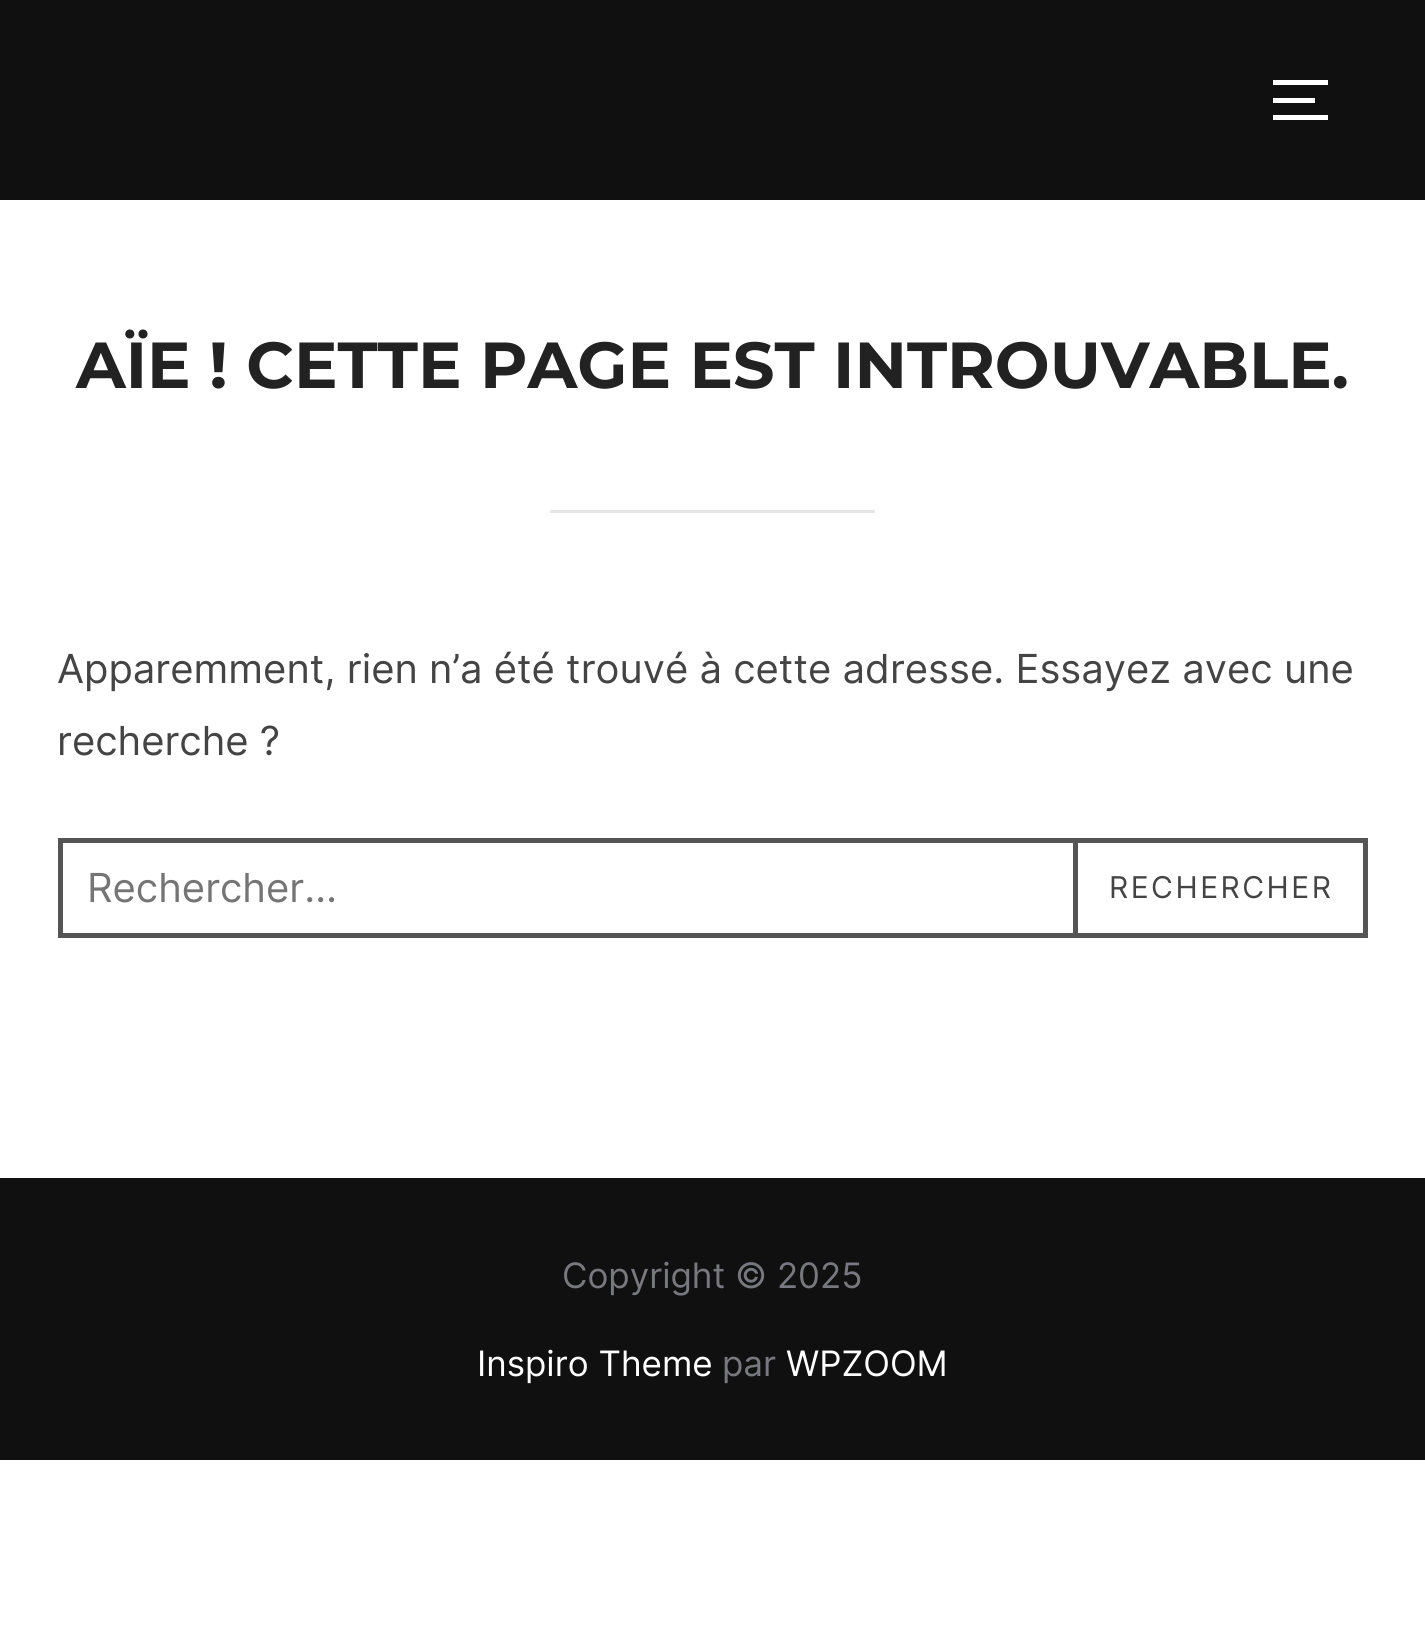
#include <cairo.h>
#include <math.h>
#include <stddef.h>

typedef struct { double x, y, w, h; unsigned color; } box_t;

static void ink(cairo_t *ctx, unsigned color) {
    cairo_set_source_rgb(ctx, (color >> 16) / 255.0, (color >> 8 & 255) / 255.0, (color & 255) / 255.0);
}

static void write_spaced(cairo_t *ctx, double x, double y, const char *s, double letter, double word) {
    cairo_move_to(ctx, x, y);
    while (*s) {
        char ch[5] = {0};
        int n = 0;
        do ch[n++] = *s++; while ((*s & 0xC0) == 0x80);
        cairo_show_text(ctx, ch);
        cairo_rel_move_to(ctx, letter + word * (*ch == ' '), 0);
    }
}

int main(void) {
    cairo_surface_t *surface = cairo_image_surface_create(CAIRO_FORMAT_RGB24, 1425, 1646);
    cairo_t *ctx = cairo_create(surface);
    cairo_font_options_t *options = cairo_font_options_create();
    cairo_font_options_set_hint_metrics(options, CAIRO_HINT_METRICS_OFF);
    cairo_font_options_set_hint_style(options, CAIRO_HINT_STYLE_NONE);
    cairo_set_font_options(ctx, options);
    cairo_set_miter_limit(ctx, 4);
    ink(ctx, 0xFFFFFF);
    cairo_paint(ctx);
    {
        static const box_t items[] = {
            {0, 0, 1425, 200, 0x101010},
            {1273, 80, 55, 5, 0xFFFFFF},
            {1273, 98, 42, 5, 0xFFFFFF},
            {1273, 115, 55, 5, 0xFFFFFF},
        };
        for (size_t i = 0; i < sizeof items / sizeof *items; i++) {
            ink(ctx, items[i].color);
            cairo_rectangle(ctx, items[i].x, items[i].y, items[i].w, items[i].h);
            cairo_fill(ctx);
        }
    }
    cairo_select_font_face(ctx, "Montserrat", CAIRO_FONT_SLANT_NORMAL, CAIRO_FONT_WEIGHT_BOLD);
    cairo_set_font_size(ctx, 65);
    ink(ctx, 0x222222);
    cairo_move_to(ctx, 76, 388);
    cairo_show_text(ctx, "AÏE ! CETTE PAGE EST INTROUVABLE.");
    ink(ctx, 0xE6E6E6);
    cairo_rectangle(ctx, 550, 510, 325, 3);
    cairo_fill(ctx);
    cairo_select_font_face(ctx, "Inter", CAIRO_FONT_SLANT_NORMAL, CAIRO_FONT_WEIGHT_NORMAL);
    cairo_set_font_size(ctx, 40);
    ink(ctx, 0x444444);
    cairo_move_to(ctx, 57, 683);
    cairo_show_text(ctx, "Apparemment, rien n’a été trouvé à cette adresse. Essayez avec une");
    cairo_move_to(ctx, 57, 755);
    cairo_show_text(ctx, "recherche ?");
    cairo_rectangle(ctx, 60.5, 840.5, 1305, 95);
    ink(ctx, 0x565555);
    cairo_set_line_width(ctx, 5);
    cairo_stroke(ctx);
    ink(ctx, 0x757575);
    cairo_move_to(ctx, 87, 902);
    cairo_show_text(ctx, "Rechercher…");
    cairo_rectangle(ctx, 1075.5, 840.5, 290, 95);
    ink(ctx, 0x565555);
    cairo_stroke(ctx);
    cairo_set_font_size(ctx, 30);
    ink(ctx, 0x444444);
    write_spaced(ctx, 1109, 898, "RECHERCHER", 2.5, 0);
    ink(ctx, 0x101010);
    cairo_rectangle(ctx, 0, 1178, 1425, 282);
    cairo_fill(ctx);
    cairo_set_font_size(ctx, 35);
    ink(ctx, 0x78787F);
    cairo_move_to(ctx, 562, 1288);
    cairo_show_text(ctx, "Copyright © 2025");
    ink(ctx, 0xFFFFFF);
    cairo_move_to(ctx, 477, 1376);
    cairo_show_text(ctx, "Inspiro Theme");
    ink(ctx, 0x78787F);
    cairo_move_to(ctx, 722, 1376);
    cairo_show_text(ctx, "par");
    ink(ctx, 0xFFFFFF);
    cairo_move_to(ctx, 786, 1376);
    cairo_show_text(ctx, "WPZOOM");
    cairo_surface_write_to_png(surface, "image.png");
    cairo_font_options_destroy(options);
    cairo_destroy(ctx);
    cairo_surface_destroy(surface);
    return 0;
}
